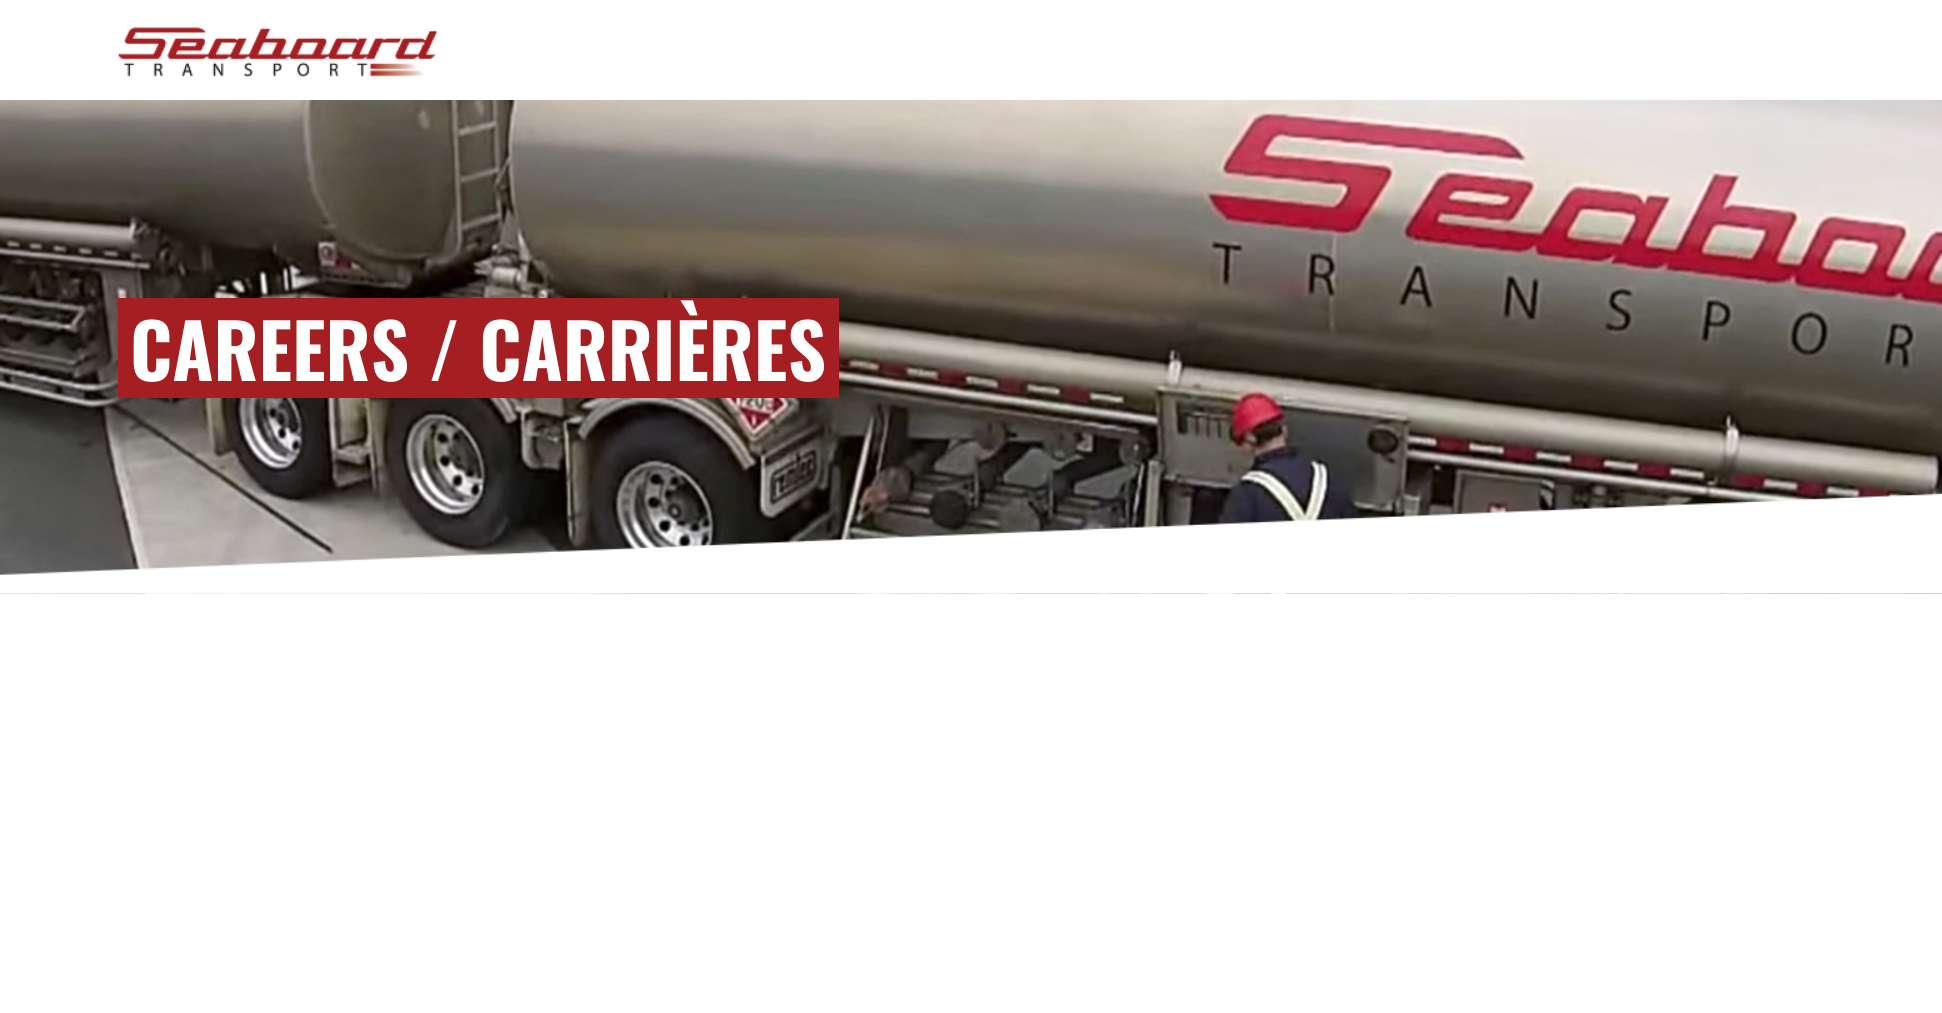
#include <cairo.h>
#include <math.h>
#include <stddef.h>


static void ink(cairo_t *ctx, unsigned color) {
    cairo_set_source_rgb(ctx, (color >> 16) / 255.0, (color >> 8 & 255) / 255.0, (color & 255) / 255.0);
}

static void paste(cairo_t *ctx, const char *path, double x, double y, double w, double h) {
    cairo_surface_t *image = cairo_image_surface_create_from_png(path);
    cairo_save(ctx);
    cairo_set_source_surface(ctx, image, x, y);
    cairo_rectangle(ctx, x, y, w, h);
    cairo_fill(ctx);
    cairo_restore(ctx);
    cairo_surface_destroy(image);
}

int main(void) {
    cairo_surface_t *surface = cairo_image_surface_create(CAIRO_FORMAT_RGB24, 1942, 1013);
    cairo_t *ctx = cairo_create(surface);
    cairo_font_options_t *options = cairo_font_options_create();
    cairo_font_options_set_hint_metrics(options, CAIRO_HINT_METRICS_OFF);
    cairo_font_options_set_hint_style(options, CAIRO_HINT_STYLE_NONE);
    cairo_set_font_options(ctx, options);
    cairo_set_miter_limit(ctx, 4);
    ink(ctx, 0xFFFFFF);
    cairo_paint(ctx);
    paste(ctx, "media/1.png", 118, 27, 320, 50);
    paste(ctx, "media/2.png", 0, 100, 1942, 494);
    ink(ctx, 0xA41E22);
    cairo_rectangle(ctx, 118, 298, 721, 100);
    cairo_fill(ctx);
    cairo_select_font_face(ctx, "Oswald", CAIRO_FONT_SLANT_NORMAL, CAIRO_FONT_WEIGHT_BOLD);
    cairo_set_font_size(ctx, 75);
    ink(ctx, 0xFFFFFF);
    cairo_move_to(ctx, 130, 381);
    cairo_show_text(ctx, "CAREERS / CARRIÈRES");
    paste(ctx, "media/3.png", 0, 493, 1942, 101);
    cairo_surface_write_to_png(surface, "image.png");
    cairo_font_options_destroy(options);
    cairo_destroy(ctx);
    cairo_surface_destroy(surface);
    return 0;
}
